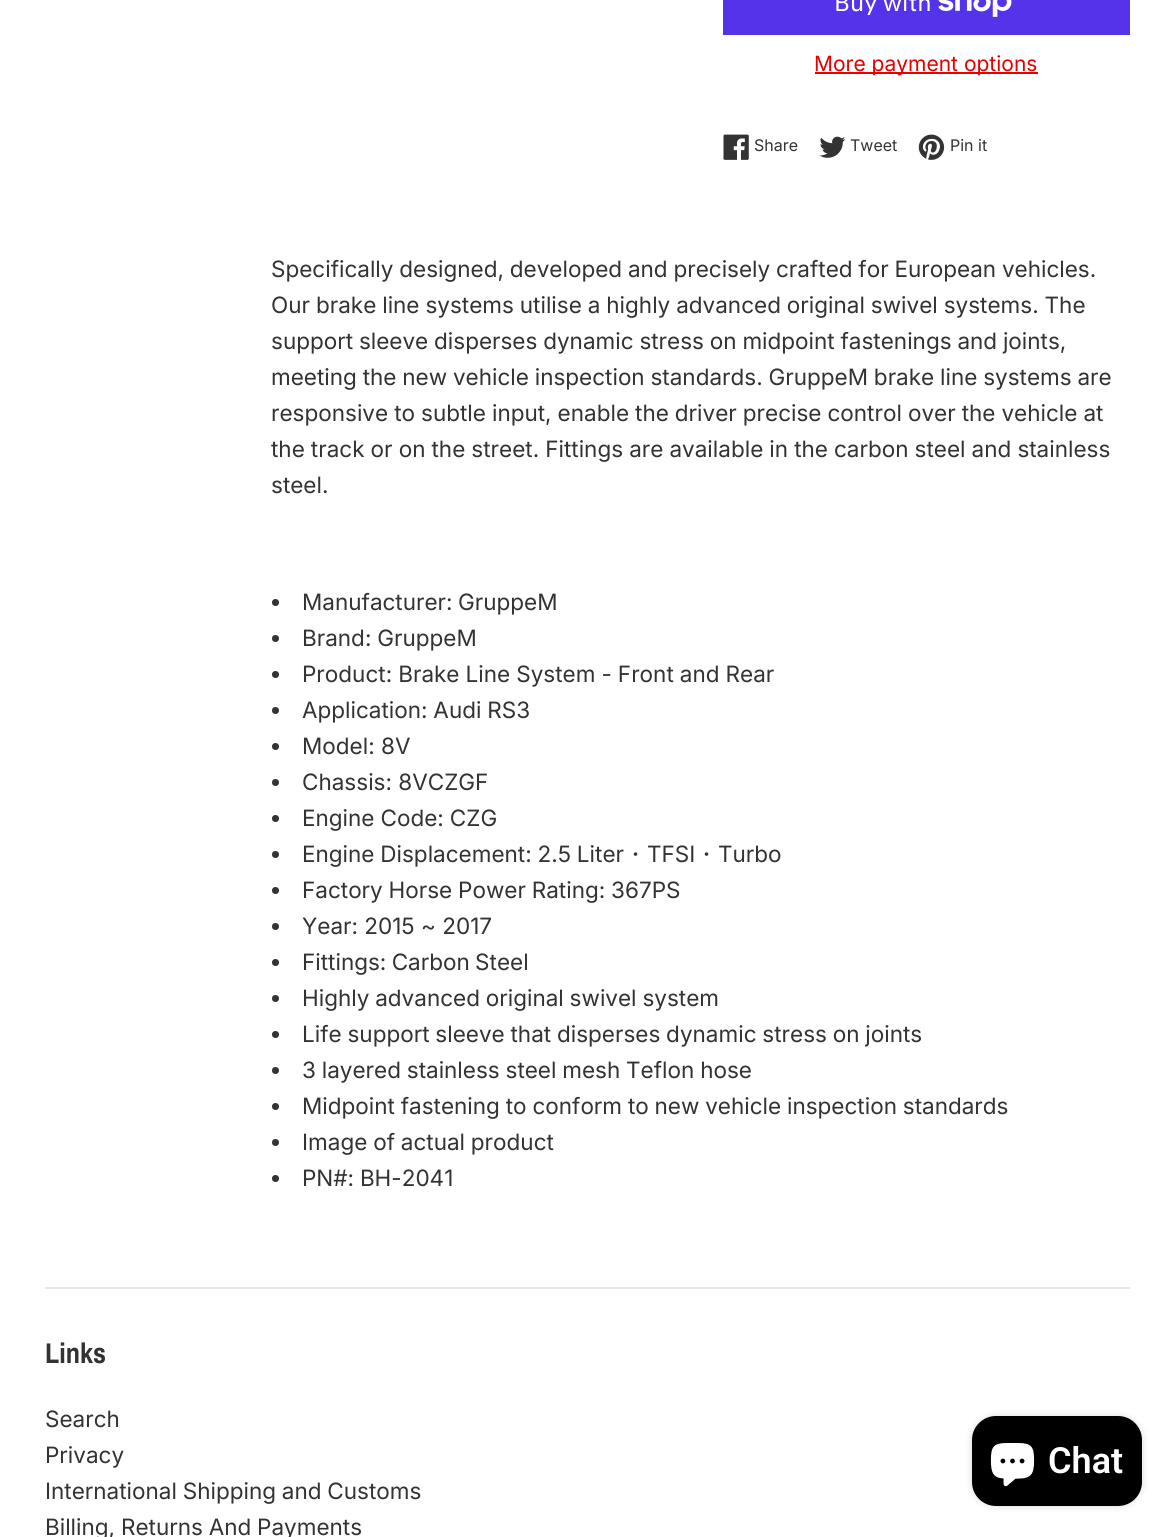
#include <cairo.h>
#include <math.h>
#include <stddef.h>


static void ink(cairo_t *ctx, unsigned color) {
    cairo_set_source_rgb(ctx, (color >> 16) / 255.0, (color >> 8 & 255) / 255.0, (color & 255) / 255.0);
}

static void write_spaced(cairo_t *ctx, double x, double y, const char *s, double letter, double word) {
    cairo_move_to(ctx, x, y);
    while (*s) {
        char ch[5] = {0};
        int n = 0;
        do ch[n++] = *s++; while ((*s & 0xC0) == 0x80);
        cairo_show_text(ctx, ch);
        cairo_rel_move_to(ctx, letter + word * (*ch == ' '), 0);
    }
}

static void round_path(cairo_t *ctx, double x, double y, double w, double h, double r) {
    cairo_new_sub_path(ctx);
    cairo_arc(ctx, x + w - r, y + h - r, r, 0, M_PI / 2);
    cairo_arc(ctx, x + r, y + h - r, r, M_PI / 2, M_PI);
    cairo_arc(ctx, x + r, y + r, r, M_PI, 1.5 * M_PI);
    cairo_arc(ctx, x + w - r, y + r, r, 1.5 * M_PI, 2 * M_PI);
    cairo_close_path(ctx);
}

static void blur_box(cairo_t *ctx, double x, double y, double w, double h, double r, double blur, double alpha) {
    cairo_push_group_with_content(ctx, CAIRO_CONTENT_ALPHA);
    cairo_set_operator(ctx, CAIRO_OPERATOR_SOURCE);
    for (int i = 15; i >= -15 && fmin(w, h) + blur * i / 3 > 0; i -= 2) {
        double e = blur * i / 6;
        cairo_set_source_rgba(ctx, 0, 0, 0, alpha * erfc((i - 1) / 8.5) / 2);
        round_path(ctx, x - e, y - e, w + 2 * e, h + 2 * e, fmax(0, fmin(r + e + blur * .6, fmin(w, h) / 2 + e)));
        cairo_fill(ctx);
    }
    cairo_pattern_t *soft = cairo_pop_group(ctx);
    cairo_mask(ctx, soft);
    cairo_pattern_destroy(soft);
}

static void paste(cairo_t *ctx, const char *path, double x, double y, double w, double h) {
    cairo_surface_t *image = cairo_image_surface_create_from_png(path);
    cairo_save(ctx);
    cairo_set_source_surface(ctx, image, x, y);
    cairo_rectangle(ctx, x, y, w, h);
    cairo_fill(ctx);
    cairo_restore(ctx);
    cairo_surface_destroy(image);
}

int main(void) {
    cairo_surface_t *surface = cairo_image_surface_create(CAIRO_FORMAT_RGB24, 1174, 1537);
    cairo_t *ctx = cairo_create(surface);
    cairo_font_options_t *options = cairo_font_options_create();
    cairo_font_options_set_hint_metrics(options, CAIRO_HINT_METRICS_OFF);
    cairo_font_options_set_hint_style(options, CAIRO_HINT_STYLE_NONE);
    cairo_set_font_options(ctx, options);
    cairo_set_miter_limit(ctx, 4);
    ink(ctx, 0xFFFFFF);
    cairo_paint(ctx);
    ink(ctx, 0x5433EB);
    cairo_rectangle(ctx, 723, 0, 407, 35);
    cairo_fill(ctx);
    cairo_select_font_face(ctx, "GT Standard", CAIRO_FONT_SLANT_NORMAL, CAIRO_FONT_WEIGHT_NORMAL);
    cairo_set_font_size(ctx, 24);
    ink(ctx, 0xFFFFFF);
    cairo_move_to(ctx, 834, 11);
    cairo_show_text(ctx, "Buy with");
    paste(ctx, "media/1.png", 938, 0, 74, 17);
    ink(ctx, 0xE70000);
    cairo_rectangle(ctx, 815, 72, 223, 2);
    cairo_fill(ctx);
    cairo_select_font_face(ctx, "Inter", CAIRO_FONT_SLANT_NORMAL, CAIRO_FONT_WEIGHT_NORMAL);
    cairo_set_font_size(ctx, 21);
    cairo_move_to(ctx, 814, 71);
    cairo_show_text(ctx, "More payment options");
    paste(ctx, "media/2.png", 723, 134, 26, 26);
    cairo_set_font_size(ctx, 16);
    ink(ctx, 0x333333);
    cairo_move_to(ctx, 754, 151);
    cairo_show_text(ctx, "Share");
    paste(ctx, "media/3.png", 819, 136, 27, 22);
    cairo_move_to(ctx, 850, 151);
    cairo_show_text(ctx, "Tweet");
    paste(ctx, "media/4.png", 918, 134, 27, 26);
    cairo_move_to(ctx, 950, 151);
    cairo_show_text(ctx, "Pin it");
    cairo_set_font_size(ctx, 22.5);
    write_spaced(ctx, 271, 277, "Specifically designed, developed and precisely crafted for European vehicles.", 0, -0.5);
    write_spaced(ctx, 271, 313, "Our brake line systems utilise a highly advanced original swivel systems. The", 0, -0.4);
    write_spaced(ctx, 271, 349, "support sleeve disperses dynamic stress on midpoint fastenings and joints,", 0, -0.5);
    write_spaced(ctx, 271, 385, "meeting the new vehicle inspection standards. GruppeM brake line systems are", 0, -0.5);
    write_spaced(ctx, 271, 421, "responsive to subtle input, enable the driver precise control over the vehicle at", 0, -0.3);
    write_spaced(ctx, 271, 457, "the track or on the street. Fittings are available in the carbon steel and stainless", 0, -0.25);
    cairo_move_to(ctx, 271, 493);
    cairo_show_text(ctx, "steel.");
    cairo_new_path(ctx);
    cairo_arc(ctx, 275.5, 602.5, 3.5, 0, 2 * M_PI);
    cairo_fill(ctx);
    write_spaced(ctx, 302, 610, "Manufacturer: GruppeM", 0, -1);
    cairo_new_path(ctx);
    cairo_arc(ctx, 275.5, 638.5, 3.5, 0, 2 * M_PI);
    cairo_fill(ctx);
    write_spaced(ctx, 302, 646, "Brand: GruppeM", 0, -0.5);
    cairo_new_path(ctx);
    cairo_arc(ctx, 275.5, 674.5, 3.5, 0, 2 * M_PI);
    cairo_fill(ctx);
    write_spaced(ctx, 302, 682, "Product: Brake Line System - Front and Rear", 0, -0.25);
    cairo_new_path(ctx);
    cairo_arc(ctx, 275.5, 710.5, 3.5, 0, 2 * M_PI);
    cairo_fill(ctx);
    write_spaced(ctx, 302, 718, "Application: Audi RS3", 0, -0.5);
    cairo_new_path(ctx);
    cairo_arc(ctx, 275.5, 746.5, 3.5, 0, 2 * M_PI);
    cairo_fill(ctx);
    cairo_move_to(ctx, 302, 754);
    cairo_show_text(ctx, "Model:");
    cairo_move_to(ctx, 381, 754);
    cairo_show_text(ctx, "8V");
    cairo_new_path(ctx);
    cairo_arc(ctx, 275.5, 782.5, 3.5, 0, 2 * M_PI);
    cairo_fill(ctx);
    cairo_move_to(ctx, 302, 790);
    cairo_show_text(ctx, "Chassis: 8VCZGF");
    cairo_new_path(ctx);
    cairo_arc(ctx, 275.5, 818.5, 3.5, 0, 2 * M_PI);
    cairo_fill(ctx);
    write_spaced(ctx, 302, 826, "Engine Code: CZG", 0, -0.3);
    cairo_new_path(ctx);
    cairo_arc(ctx, 275.5, 854.5, 3.5, 0, 2 * M_PI);
    cairo_fill(ctx);
    write_spaced(ctx, 302, 862, "Engine Displacement: 2.5 Liter", 0, -0.5);
    cairo_select_font_face(ctx, "WenQuanYi Zen Hei Medium", CAIRO_FONT_SLANT_NORMAL, CAIRO_FONT_WEIGHT_NORMAL);
    cairo_move_to(ctx, 624, 862);
    cairo_show_text(ctx, "・");
    cairo_select_font_face(ctx, "Inter", CAIRO_FONT_SLANT_NORMAL, CAIRO_FONT_WEIGHT_NORMAL);
    cairo_move_to(ctx, 647, 862);
    cairo_show_text(ctx, "TFSI");
    cairo_select_font_face(ctx, "WenQuanYi Zen Hei Medium", CAIRO_FONT_SLANT_NORMAL, CAIRO_FONT_WEIGHT_NORMAL);
    cairo_move_to(ctx, 695, 862);
    cairo_show_text(ctx, "・");
    cairo_select_font_face(ctx, "Inter", CAIRO_FONT_SLANT_NORMAL, CAIRO_FONT_WEIGHT_NORMAL);
    cairo_move_to(ctx, 718, 862);
    cairo_show_text(ctx, "Turbo");
    cairo_new_path(ctx);
    cairo_arc(ctx, 275.5, 890.5, 3.5, 0, 2 * M_PI);
    cairo_fill(ctx);
    write_spaced(ctx, 302, 898, "Factory Horse Power Rating: 367PS", 0, -0.5);
    cairo_new_path(ctx);
    cairo_arc(ctx, 275.5, 926.5, 3.5, 0, 2 * M_PI);
    cairo_fill(ctx);
    cairo_move_to(ctx, 302, 934);
    cairo_show_text(ctx, "Year: 2015 ~ 2017");
    cairo_new_path(ctx);
    cairo_arc(ctx, 275.5, 962.5, 3.5, 0, 2 * M_PI);
    cairo_fill(ctx);
    write_spaced(ctx, 302, 970, "Fittings: Carbon Steel", 0, -1);
    cairo_new_path(ctx);
    cairo_arc(ctx, 275.5, 998.5, 3.5, 0, 2 * M_PI);
    cairo_fill(ctx);
    write_spaced(ctx, 302, 1006, "Highly advanced original swivel system", 0, -0.5);
    cairo_new_path(ctx);
    cairo_arc(ctx, 275.5, 1034.5, 3.5, 0, 2 * M_PI);
    cairo_fill(ctx);
    write_spaced(ctx, 302, 1042, "Life support sleeve that disperses dynamic stress on joints", 0, -0.5);
    cairo_new_path(ctx);
    cairo_arc(ctx, 275.5, 1070.5, 3.5, 0, 2 * M_PI);
    cairo_fill(ctx);
    write_spaced(ctx, 302, 1078, "3 layered stainless steel mesh Teflon hose", 0, -0.5);
    cairo_new_path(ctx);
    cairo_arc(ctx, 275.5, 1106.5, 3.5, 0, 2 * M_PI);
    cairo_fill(ctx);
    write_spaced(ctx, 302, 1114, "Midpoint fastening to conform to new vehicle inspection standards", 0, -0.5);
    cairo_new_path(ctx);
    cairo_arc(ctx, 275.5, 1142.5, 3.5, 0, 2 * M_PI);
    cairo_fill(ctx);
    write_spaced(ctx, 302, 1150, "Image of actual product", 0, -0.5);
    cairo_new_path(ctx);
    cairo_arc(ctx, 275.5, 1178.5, 3.5, 0, 2 * M_PI);
    cairo_fill(ctx);
    write_spaced(ctx, 302, 1186, "PN#: BH-2041", 0, -0.5);
    ink(ctx, 0xE8E8E8);
    cairo_rectangle(ctx, 45, 1287, 1085, 2);
    cairo_fill(ctx);
    cairo_select_font_face(ctx, "Archivo Narrow", CAIRO_FONT_SLANT_NORMAL, CAIRO_FONT_WEIGHT_BOLD);
    cairo_set_font_size(ctx, 28.5);
    ink(ctx, 0x333333);
    cairo_move_to(ctx, 45, 1363);
    cairo_show_text(ctx, "Links");
    cairo_select_font_face(ctx, "Inter", CAIRO_FONT_SLANT_NORMAL, CAIRO_FONT_WEIGHT_NORMAL);
    cairo_set_font_size(ctx, 22.5);
    cairo_move_to(ctx, 45, 1427);
    cairo_show_text(ctx, "Search");
    cairo_move_to(ctx, 45, 1463);
    cairo_show_text(ctx, "Privacy");
    write_spaced(ctx, 45, 1499, "International Shipping and Customs", 0, -0.5);
    write_spaced(ctx, 45, 1535, "Billing, Returns And Payments", 0, -0.5);
    ink(ctx, 0x000000);
    blur_box(ctx, 972, 1416, 170, 90, 24, 4, 0.15);
    ink(ctx, 0x000000);
    round_path(ctx, 972, 1416, 170, 90, 24);
    cairo_fill(ctx);
    paste(ctx, "media/5.png", 990, 1443, 45, 44);
    cairo_select_font_face(ctx, "Roboto SemiBold", CAIRO_FONT_SLANT_NORMAL, CAIRO_FONT_WEIGHT_NORMAL);
    cairo_set_font_size(ctx, 36);
    ink(ctx, 0xFFFFFF);
    cairo_move_to(ctx, 1048, 1473);
    cairo_show_text(ctx, "Chat");
    cairo_surface_write_to_png(surface, "image.png");
    cairo_font_options_destroy(options);
    cairo_destroy(ctx);
    cairo_surface_destroy(surface);
    return 0;
}
